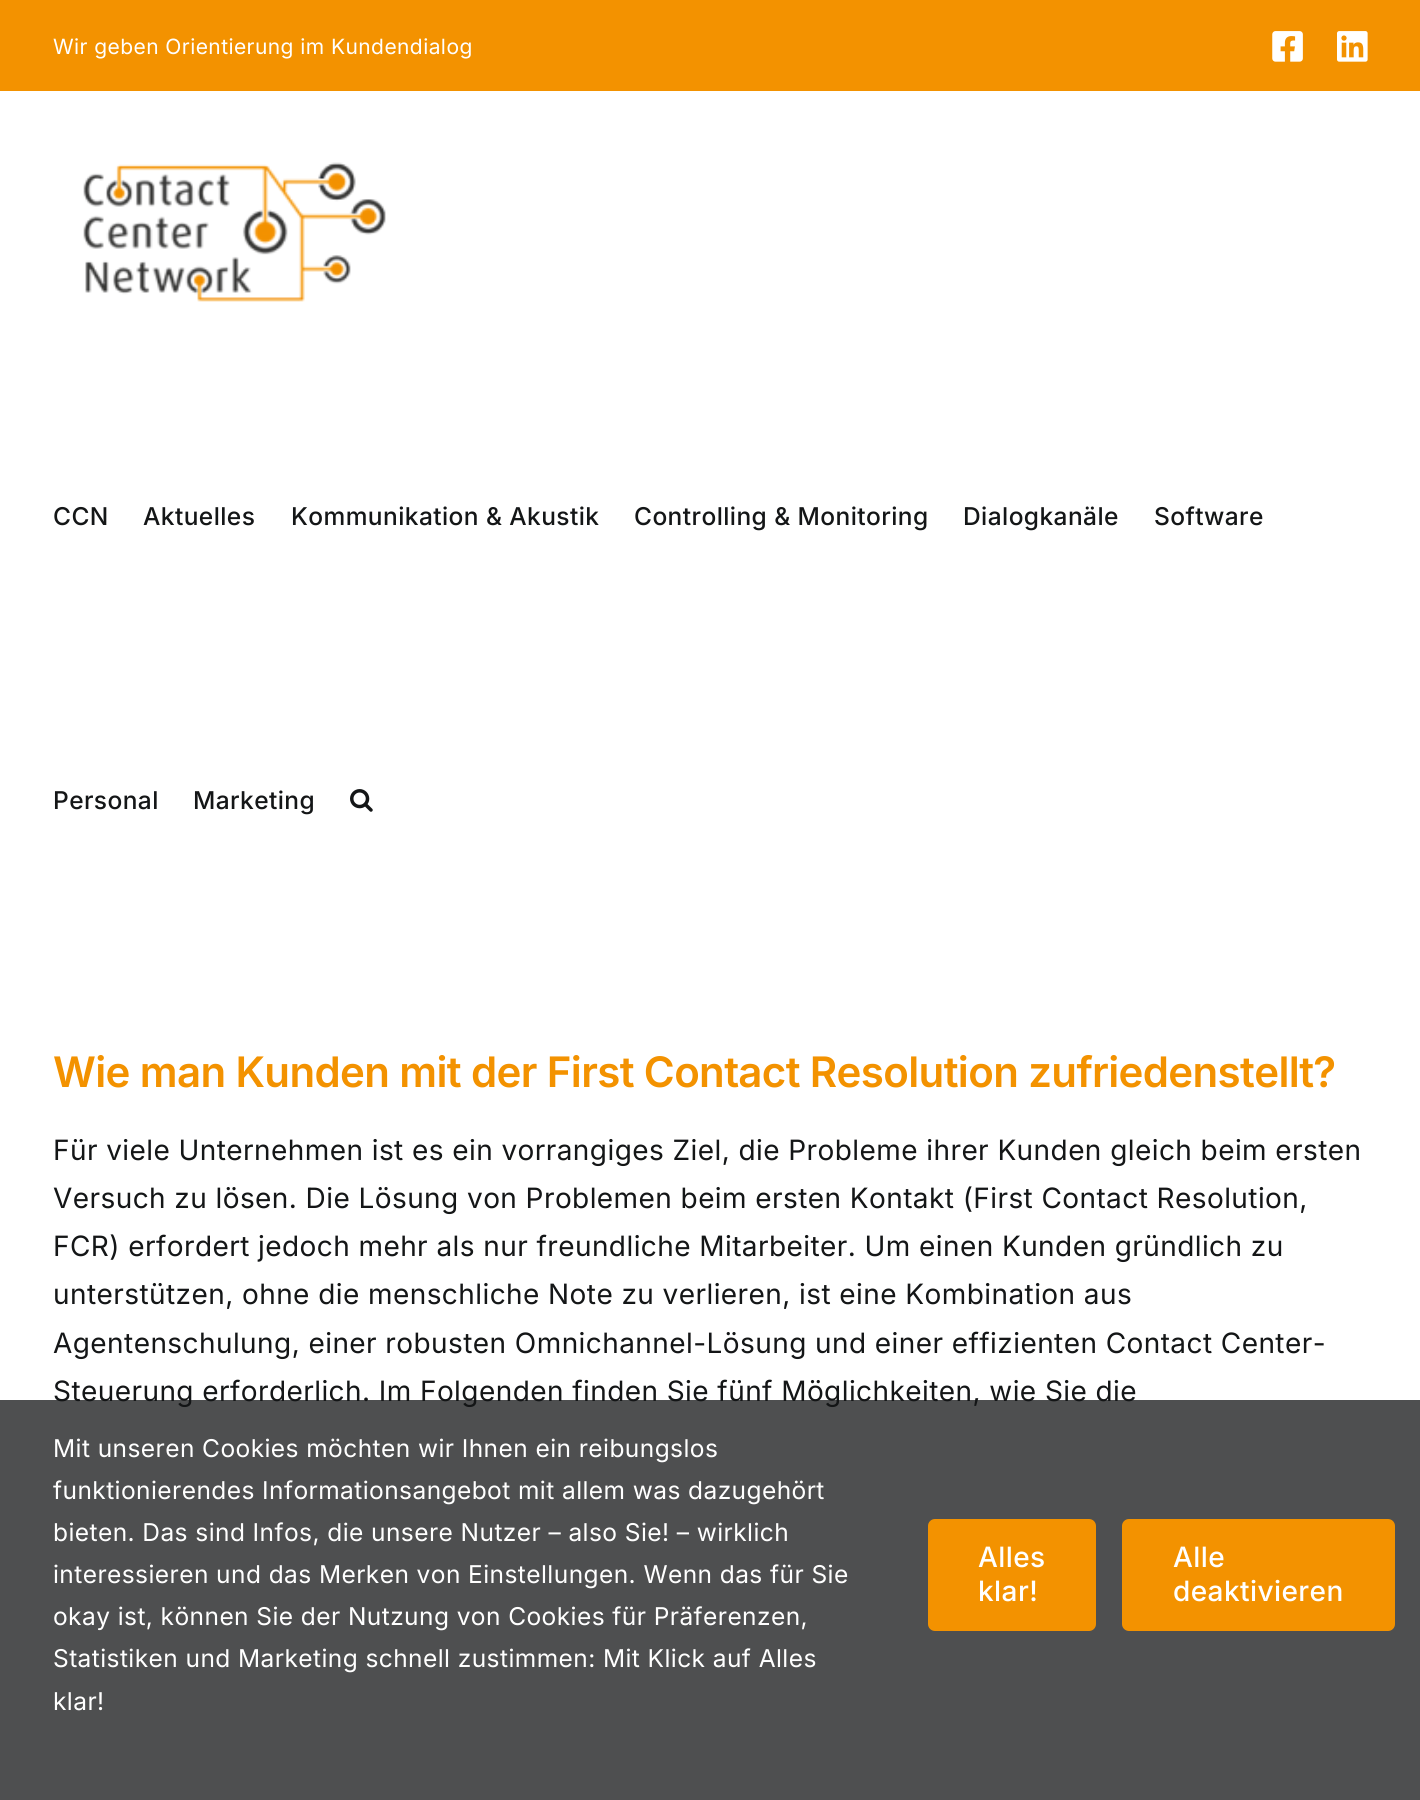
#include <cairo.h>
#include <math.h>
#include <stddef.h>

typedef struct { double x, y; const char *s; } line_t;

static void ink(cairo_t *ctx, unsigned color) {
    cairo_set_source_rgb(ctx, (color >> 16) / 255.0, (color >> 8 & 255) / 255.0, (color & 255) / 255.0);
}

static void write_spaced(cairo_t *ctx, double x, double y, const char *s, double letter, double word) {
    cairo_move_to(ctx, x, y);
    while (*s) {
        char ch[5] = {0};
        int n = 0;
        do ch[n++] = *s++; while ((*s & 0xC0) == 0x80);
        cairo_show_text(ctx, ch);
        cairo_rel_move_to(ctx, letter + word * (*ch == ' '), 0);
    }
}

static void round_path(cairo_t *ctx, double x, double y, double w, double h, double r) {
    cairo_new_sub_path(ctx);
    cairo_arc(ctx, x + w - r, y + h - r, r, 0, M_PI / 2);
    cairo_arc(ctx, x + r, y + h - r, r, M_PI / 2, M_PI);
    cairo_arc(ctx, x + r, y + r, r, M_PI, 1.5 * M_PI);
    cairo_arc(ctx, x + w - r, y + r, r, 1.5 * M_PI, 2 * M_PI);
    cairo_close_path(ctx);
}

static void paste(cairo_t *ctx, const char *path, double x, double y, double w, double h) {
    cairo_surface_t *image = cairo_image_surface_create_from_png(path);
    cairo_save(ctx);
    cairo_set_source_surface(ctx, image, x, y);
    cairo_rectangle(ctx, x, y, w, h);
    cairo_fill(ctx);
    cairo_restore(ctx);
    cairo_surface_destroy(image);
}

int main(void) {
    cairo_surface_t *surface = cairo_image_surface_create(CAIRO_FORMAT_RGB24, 1420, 1800);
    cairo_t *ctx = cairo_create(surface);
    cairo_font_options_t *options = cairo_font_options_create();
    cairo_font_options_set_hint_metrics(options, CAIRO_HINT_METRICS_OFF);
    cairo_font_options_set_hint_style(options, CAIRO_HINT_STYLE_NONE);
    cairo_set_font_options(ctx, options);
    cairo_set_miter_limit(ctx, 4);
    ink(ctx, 0xFFFFFF);
    cairo_paint(ctx);
    ink(ctx, 0xF39200);
    cairo_rectangle(ctx, 0, 0, 1420, 91);
    cairo_fill(ctx);
    cairo_select_font_face(ctx, "Inter", CAIRO_FONT_SLANT_NORMAL, CAIRO_FONT_WEIGHT_NORMAL);
    cairo_set_font_size(ctx, 21);
    ink(ctx, 0xFFFFFF);
    write_spaced(ctx, 53, 54, "Wir geben Orientierung im Kundendialog", 0.42, 0);
    paste(ctx, "media/1.png", 1272, 31, 31, 31);
    paste(ctx, "media/2.png", 1337, 31, 31, 31);
    paste(ctx, "media/3.png", 83, 162, 303, 140);
    cairo_select_font_face(ctx, "Inter Medium", CAIRO_FONT_SLANT_NORMAL, CAIRO_FONT_WEIGHT_NORMAL);
    cairo_set_font_size(ctx, 24.5);
    ink(ctx, 0x141617);
    {
        static const line_t items[] = {
            {53, 525, "CCN"},
            {143, 525, "Aktuelles"},
            {291, 525, "Kommunikation & Akustik"},
            {634, 525, "Controlling & Monitoring"},
            {963, 525, "Dialogkanäle"},
            {1154, 525, "Software"},
            {53, 809, "Personal"},
            {193, 809, "Marketing"},
        };
        for (size_t i = 0; i < sizeof items / sizeof *items; i++) {
            write_spaced(ctx, items[i].x, items[i].y, items[i].s, 0.42, 0);
        }
    }
    paste(ctx, "media/4.png", 350, 789, 23, 23);
    cairo_select_font_face(ctx, "Inter SemiBold", CAIRO_FONT_SLANT_NORMAL, CAIRO_FONT_WEIGHT_NORMAL);
    cairo_set_font_size(ctx, 42);
    ink(ctx, 0xF39200);
    write_spaced(ctx, 53, 1087, "Wie man Kunden mit der First Contact Resolution zufriedenstellt?", -0.63, 0);
    cairo_select_font_face(ctx, "Inter", CAIRO_FONT_SLANT_NORMAL, CAIRO_FONT_WEIGHT_NORMAL);
    cairo_set_font_size(ctx, 28);
    ink(ctx, 0x141617);
    {
        static const line_t items[] = {
            {53, 1160, "Für viele Unternehmen ist es ein vorrangiges Ziel, die Probleme ihrer Kunden gleich beim ersten"},
            {53, 1208, "Versuch zu lösen. Die Lösung von Problemen beim ersten Kontakt (First Contact Resolution,"},
            {53, 1256, "FCR) erfordert jedoch mehr als nur freundliche Mitarbeiter. Um einen Kunden gründlich zu"},
            {53, 1304, "unterstützen, ohne die menschliche Note zu verlieren, ist eine Kombination aus"},
            {53, 1353, "Agentenschulung, einer robusten Omnichannel-Lösung und einer effizienten Contact Center-"},
            {53, 1401, "Steuerung erforderlich. Im Folgenden finden Sie fünf Möglichkeiten, wie Sie die"},
        };
        for (size_t i = 0; i < sizeof items / sizeof *items; i++) {
            write_spaced(ctx, items[i].x, items[i].y, items[i].s, 0.42, 0);
        }
    }
    cairo_set_source_rgba(ctx, 0.075, 0.082, 0.086, 0.75);
    cairo_rectangle(ctx, 0, 1400, 1420, 400);
    cairo_fill(ctx);
    cairo_set_font_size(ctx, 24.5);
    ink(ctx, 0xFFFFFF);
    {
        static const line_t items[] = {
            {53, 1457, "Mit unseren Cookies möchten wir Ihnen ein reibungslos"},
            {53, 1499, "funktionierendes Informationsangebot mit allem was dazugehört"},
            {53, 1541, "bieten. Das sind Infos, die unsere Nutzer – also Sie! – wirklich"},
            {53, 1583, "interessieren und das Merken von Einstellungen. Wenn das für Sie"},
            {53, 1625, "okay ist, können Sie der Nutzung von Cookies für Präferenzen,"},
            {53, 1667, "Statistiken und Marketing schnell zustimmen: Mit Klick auf Alles"},
            {53, 1710, "klar!"},
        };
        for (size_t i = 0; i < sizeof items / sizeof *items; i++) {
            write_spaced(ctx, items[i].x, items[i].y, items[i].s, 0.42, 0);
        }
    }
    ink(ctx, 0xF39200);
    round_path(ctx, 928, 1519, 168, 112, 7);
    cairo_fill(ctx);
    cairo_select_font_face(ctx, "Inter Medium", CAIRO_FONT_SLANT_NORMAL, CAIRO_FONT_WEIGHT_NORMAL);
    cairo_set_font_size(ctx, 28);
    ink(ctx, 0xFFFFFF);
    write_spaced(ctx, 978, 1567, "Alles", 0.42, 0);
    write_spaced(ctx, 978, 1601, "klar!", 0.42, 0);
    ink(ctx, 0xF39200);
    round_path(ctx, 1122, 1519, 273, 112, 7);
    cairo_fill(ctx);
    ink(ctx, 0xFFFFFF);
    write_spaced(ctx, 1173, 1567, "Alle", 0.42, 0);
    write_spaced(ctx, 1173, 1601, "deaktivieren", 0.42, 0);
    cairo_surface_write_to_png(surface, "image.png");
    cairo_font_options_destroy(options);
    cairo_destroy(ctx);
    cairo_surface_destroy(surface);
    return 0;
}
